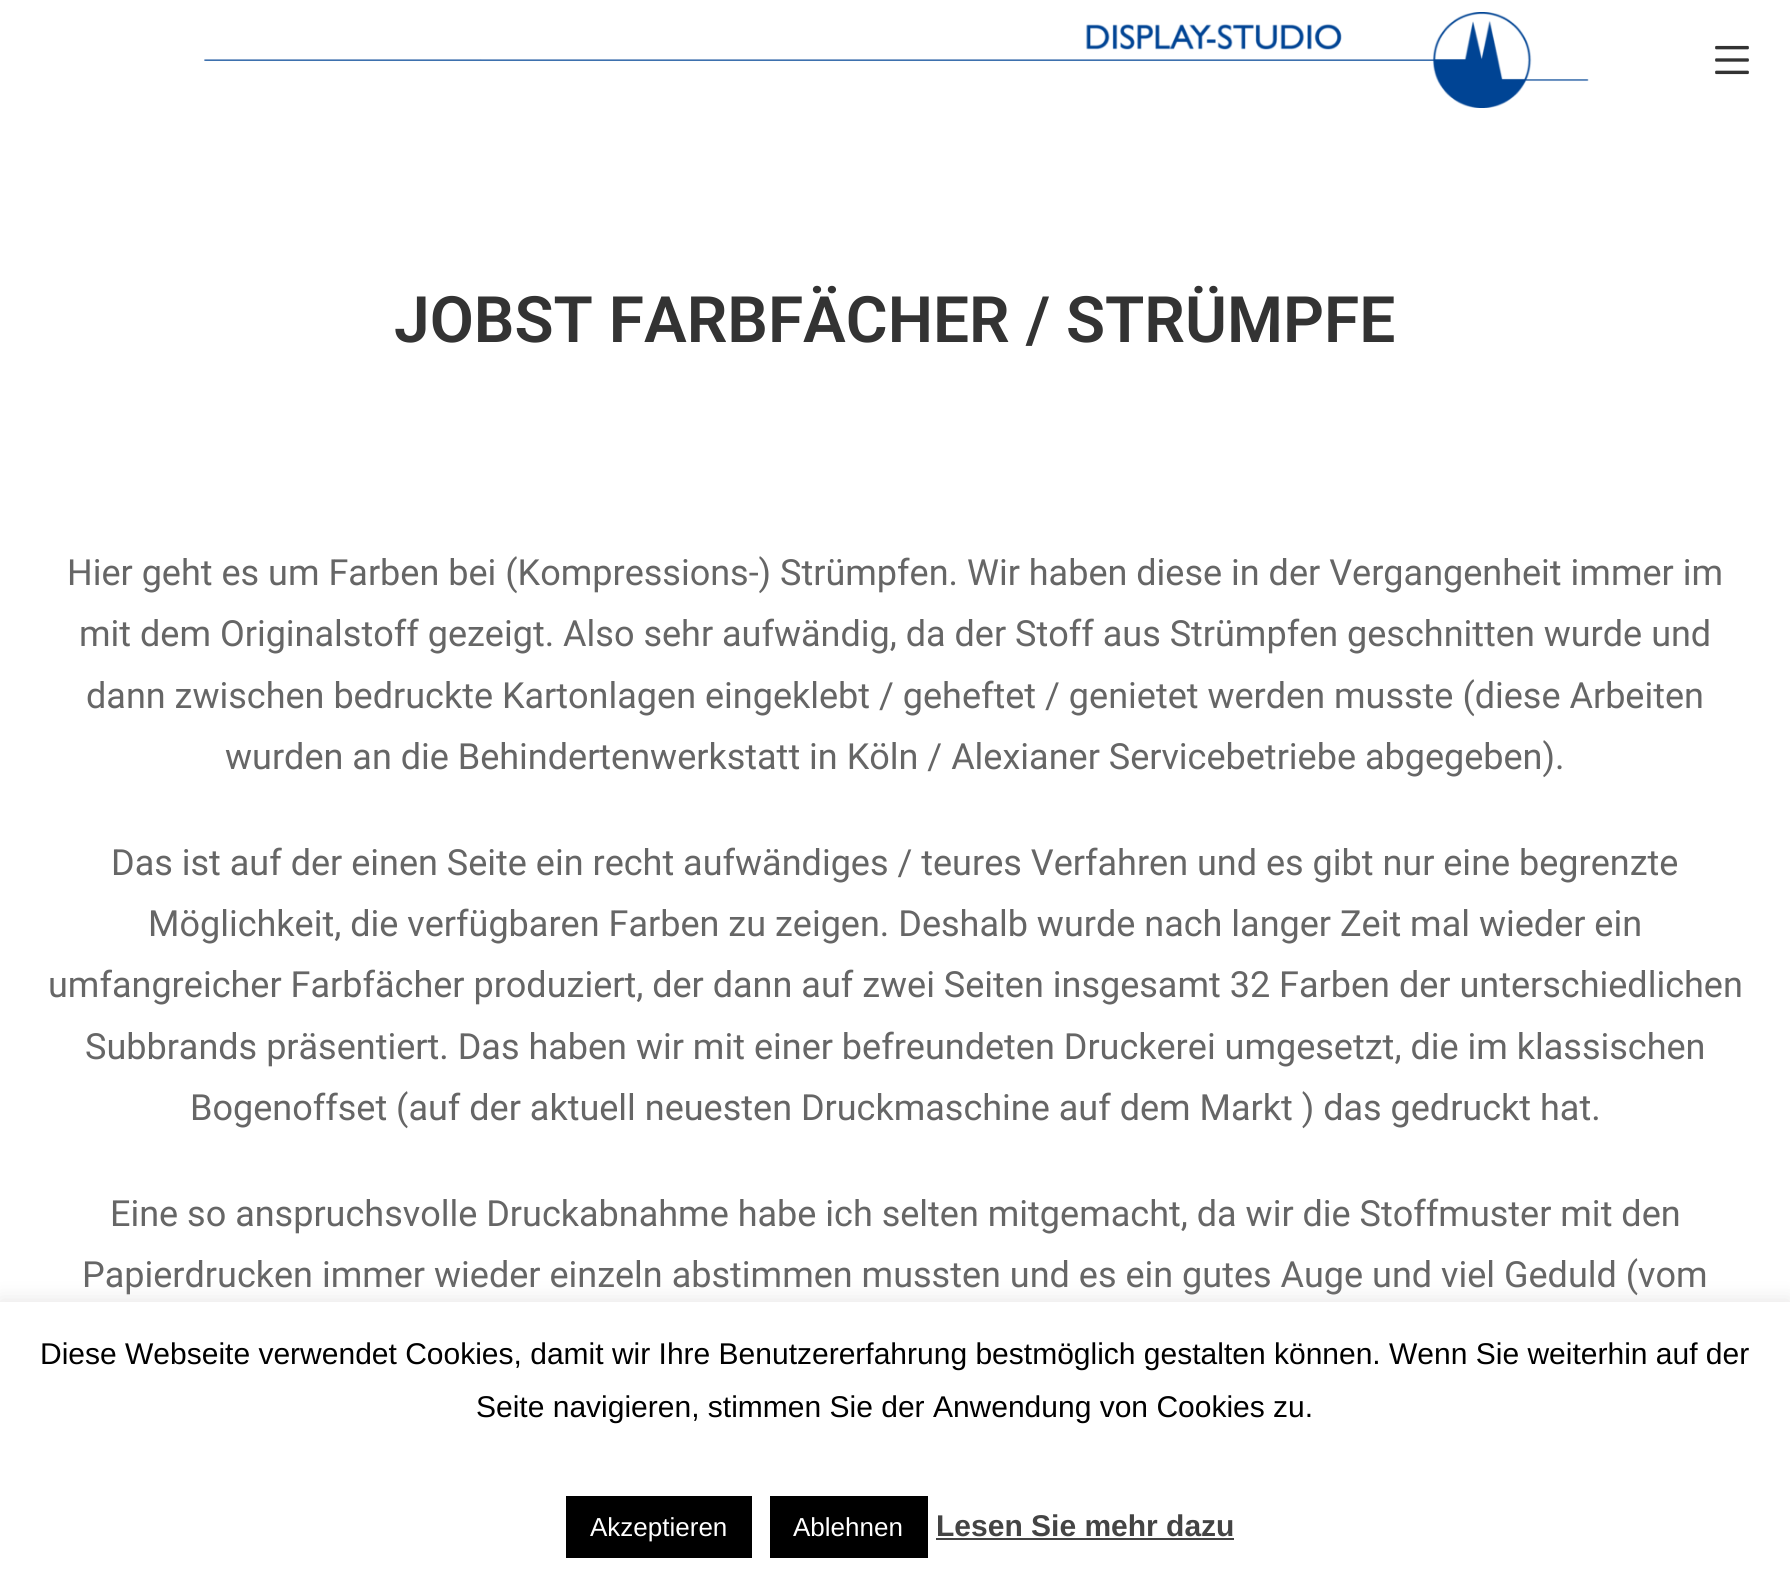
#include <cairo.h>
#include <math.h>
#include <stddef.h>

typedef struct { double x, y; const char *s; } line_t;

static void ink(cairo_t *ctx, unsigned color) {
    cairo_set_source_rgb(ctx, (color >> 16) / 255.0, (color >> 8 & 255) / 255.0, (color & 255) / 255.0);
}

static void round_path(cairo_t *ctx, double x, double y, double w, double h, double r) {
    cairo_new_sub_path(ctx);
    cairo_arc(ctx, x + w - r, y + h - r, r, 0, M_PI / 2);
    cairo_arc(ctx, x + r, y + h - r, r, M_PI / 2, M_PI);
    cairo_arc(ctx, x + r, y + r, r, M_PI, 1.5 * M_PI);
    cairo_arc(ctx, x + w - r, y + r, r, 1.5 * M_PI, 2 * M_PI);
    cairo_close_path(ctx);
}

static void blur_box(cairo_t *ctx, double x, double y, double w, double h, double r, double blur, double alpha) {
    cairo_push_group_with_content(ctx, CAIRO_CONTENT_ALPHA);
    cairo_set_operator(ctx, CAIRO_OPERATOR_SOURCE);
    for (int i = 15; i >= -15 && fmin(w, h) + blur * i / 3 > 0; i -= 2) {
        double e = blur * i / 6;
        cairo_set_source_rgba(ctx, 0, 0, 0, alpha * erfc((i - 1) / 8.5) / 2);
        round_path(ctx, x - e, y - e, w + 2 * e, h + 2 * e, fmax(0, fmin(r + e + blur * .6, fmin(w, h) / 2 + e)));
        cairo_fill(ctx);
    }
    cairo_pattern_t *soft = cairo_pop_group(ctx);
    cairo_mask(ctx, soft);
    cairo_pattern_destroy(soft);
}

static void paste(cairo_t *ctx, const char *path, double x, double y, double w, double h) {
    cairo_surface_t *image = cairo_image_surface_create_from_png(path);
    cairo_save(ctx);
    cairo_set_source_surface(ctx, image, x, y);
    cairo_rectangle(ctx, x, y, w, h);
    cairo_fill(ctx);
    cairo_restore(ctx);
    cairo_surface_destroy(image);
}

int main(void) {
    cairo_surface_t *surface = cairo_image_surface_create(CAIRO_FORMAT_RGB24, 1790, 1582);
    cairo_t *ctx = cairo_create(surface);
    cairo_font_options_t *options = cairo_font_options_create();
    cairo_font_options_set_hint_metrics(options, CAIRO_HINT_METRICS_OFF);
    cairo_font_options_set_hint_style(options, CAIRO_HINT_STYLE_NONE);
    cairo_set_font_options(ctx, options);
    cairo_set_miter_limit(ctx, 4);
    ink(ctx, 0xFFFFFF);
    cairo_paint(ctx);
    paste(ctx, "media/1.png", 204, 12, 1385, 96);
    paste(ctx, "media/2.png", 1715, 45, 34, 30);
    cairo_select_font_face(ctx, "Roboto SemiBold", CAIRO_FONT_SLANT_NORMAL, CAIRO_FONT_WEIGHT_NORMAL);
    cairo_set_font_size(ctx, 64);
    ink(ctx, 0x333333);
    cairo_move_to(ctx, 394, 342);
    cairo_show_text(ctx, "JOBST FARBFÄCHER / STRÜMPFE");
    cairo_select_font_face(ctx, "Roboto", CAIRO_FONT_SLANT_NORMAL, CAIRO_FONT_WEIGHT_NORMAL);
    cairo_set_font_size(ctx, 36);
    ink(ctx, 0x666666);
    {
        static const line_t items[] = {
            {67, 585, "Hier geht es um Farben bei (Kompressions-) Strümpfen. Wir haben diese in der Vergangenheit immer im"},
            {79, 646, "mit dem Originalstoff gezeigt. Also sehr aufwändig, da der Stoff aus Strümpfen geschnitten wurde und"},
            {86, 708, "dann zwischen bedruckte Kartonlagen eingeklebt / geheftet / genietet werden musste (diese Arbeiten"},
            {225, 769, "wurden an die Behindertenwerkstatt in Köln / Alexianer Servicebetriebe abgegeben)."},
            {111, 875, "Das ist auf der einen Seite ein recht aufwändiges / teures Verfahren und es gibt nur eine begrenzte"},
            {148, 936, "Möglichkeit, die verfügbaren Farben zu zeigen. Deshalb wurde nach langer Zeit mal wieder ein"},
            {48, 997, "umfangreicher Farbfächer produziert, der dann auf zwei Seiten insgesamt 32 Farben der unterschiedlichen"},
            {85, 1059, "Subbrands präsentiert. Das haben wir mit einer befreundeten Druckerei umgesetzt, die im klassischen"},
            {190, 1120, "Bogenoffset (auf der aktuell neuesten Druckmaschine auf dem Markt ) das gedruckt hat."},
            {110, 1226, "Eine so anspruchsvolle Druckabnahme habe ich selten mitgemacht, da wir die Stoffmuster mit den"},
            {82, 1287, "Papierdrucken immer wieder einzeln abstimmen mussten und es ein gutes Auge und viel Geduld (vom"},
        };
        for (size_t i = 0; i < sizeof items / sizeof *items; i++) {
            cairo_move_to(ctx, items[i].x, items[i].y);
            cairo_show_text(ctx, items[i].s);
        }
    }
    ink(ctx, 0xACABAB);
    blur_box(ctx, 0, 1300, 1790, 280, 0, 10, 0.3);
    ink(ctx, 0xFFFFFF);
    cairo_rectangle(ctx, 0, 1302, 1790, 280);
    cairo_fill(ctx);
    cairo_select_font_face(ctx, "Liberation Sans", CAIRO_FONT_SLANT_NORMAL, CAIRO_FONT_WEIGHT_NORMAL);
    cairo_set_font_size(ctx, 30);
    ink(ctx, 0x000000);
    cairo_move_to(ctx, 40, 1364);
    cairo_show_text(ctx, "Diese Webseite verwendet Cookies, damit wir Ihre Benutzererfahrung bestmöglich gestalten können. Wenn Sie weiterhin auf der");
    cairo_move_to(ctx, 476, 1417);
    cairo_show_text(ctx, "Seite navigieren, stimmen Sie der Anwendung von Cookies zu.");
    cairo_rectangle(ctx, 566, 1496, 186, 62);
    cairo_fill(ctx);
    cairo_set_font_size(ctx, 26);
    ink(ctx, 0xFFFFFF);
    cairo_move_to(ctx, 590, 1536);
    cairo_show_text(ctx, "Akzeptieren");
    ink(ctx, 0x000000);
    cairo_rectangle(ctx, 770, 1496, 158, 62);
    cairo_fill(ctx);
    ink(ctx, 0xFFFFFF);
    cairo_move_to(ctx, 793, 1536);
    cairo_show_text(ctx, "Ablehnen");
    cairo_select_font_face(ctx, "Liberation Sans", CAIRO_FONT_SLANT_NORMAL, CAIRO_FONT_WEIGHT_BOLD);
    cairo_set_font_size(ctx, 30);
    ink(ctx, 0x444444);
    cairo_move_to(ctx, 936, 1536);
    cairo_show_text(ctx, "Lesen Sie mehr dazu");
    cairo_rectangle(ctx, 936, 1538, 298, 2);
    cairo_fill(ctx);
    cairo_surface_write_to_png(surface, "image.png");
    cairo_font_options_destroy(options);
    cairo_destroy(ctx);
    cairo_surface_destroy(surface);
    return 0;
}
